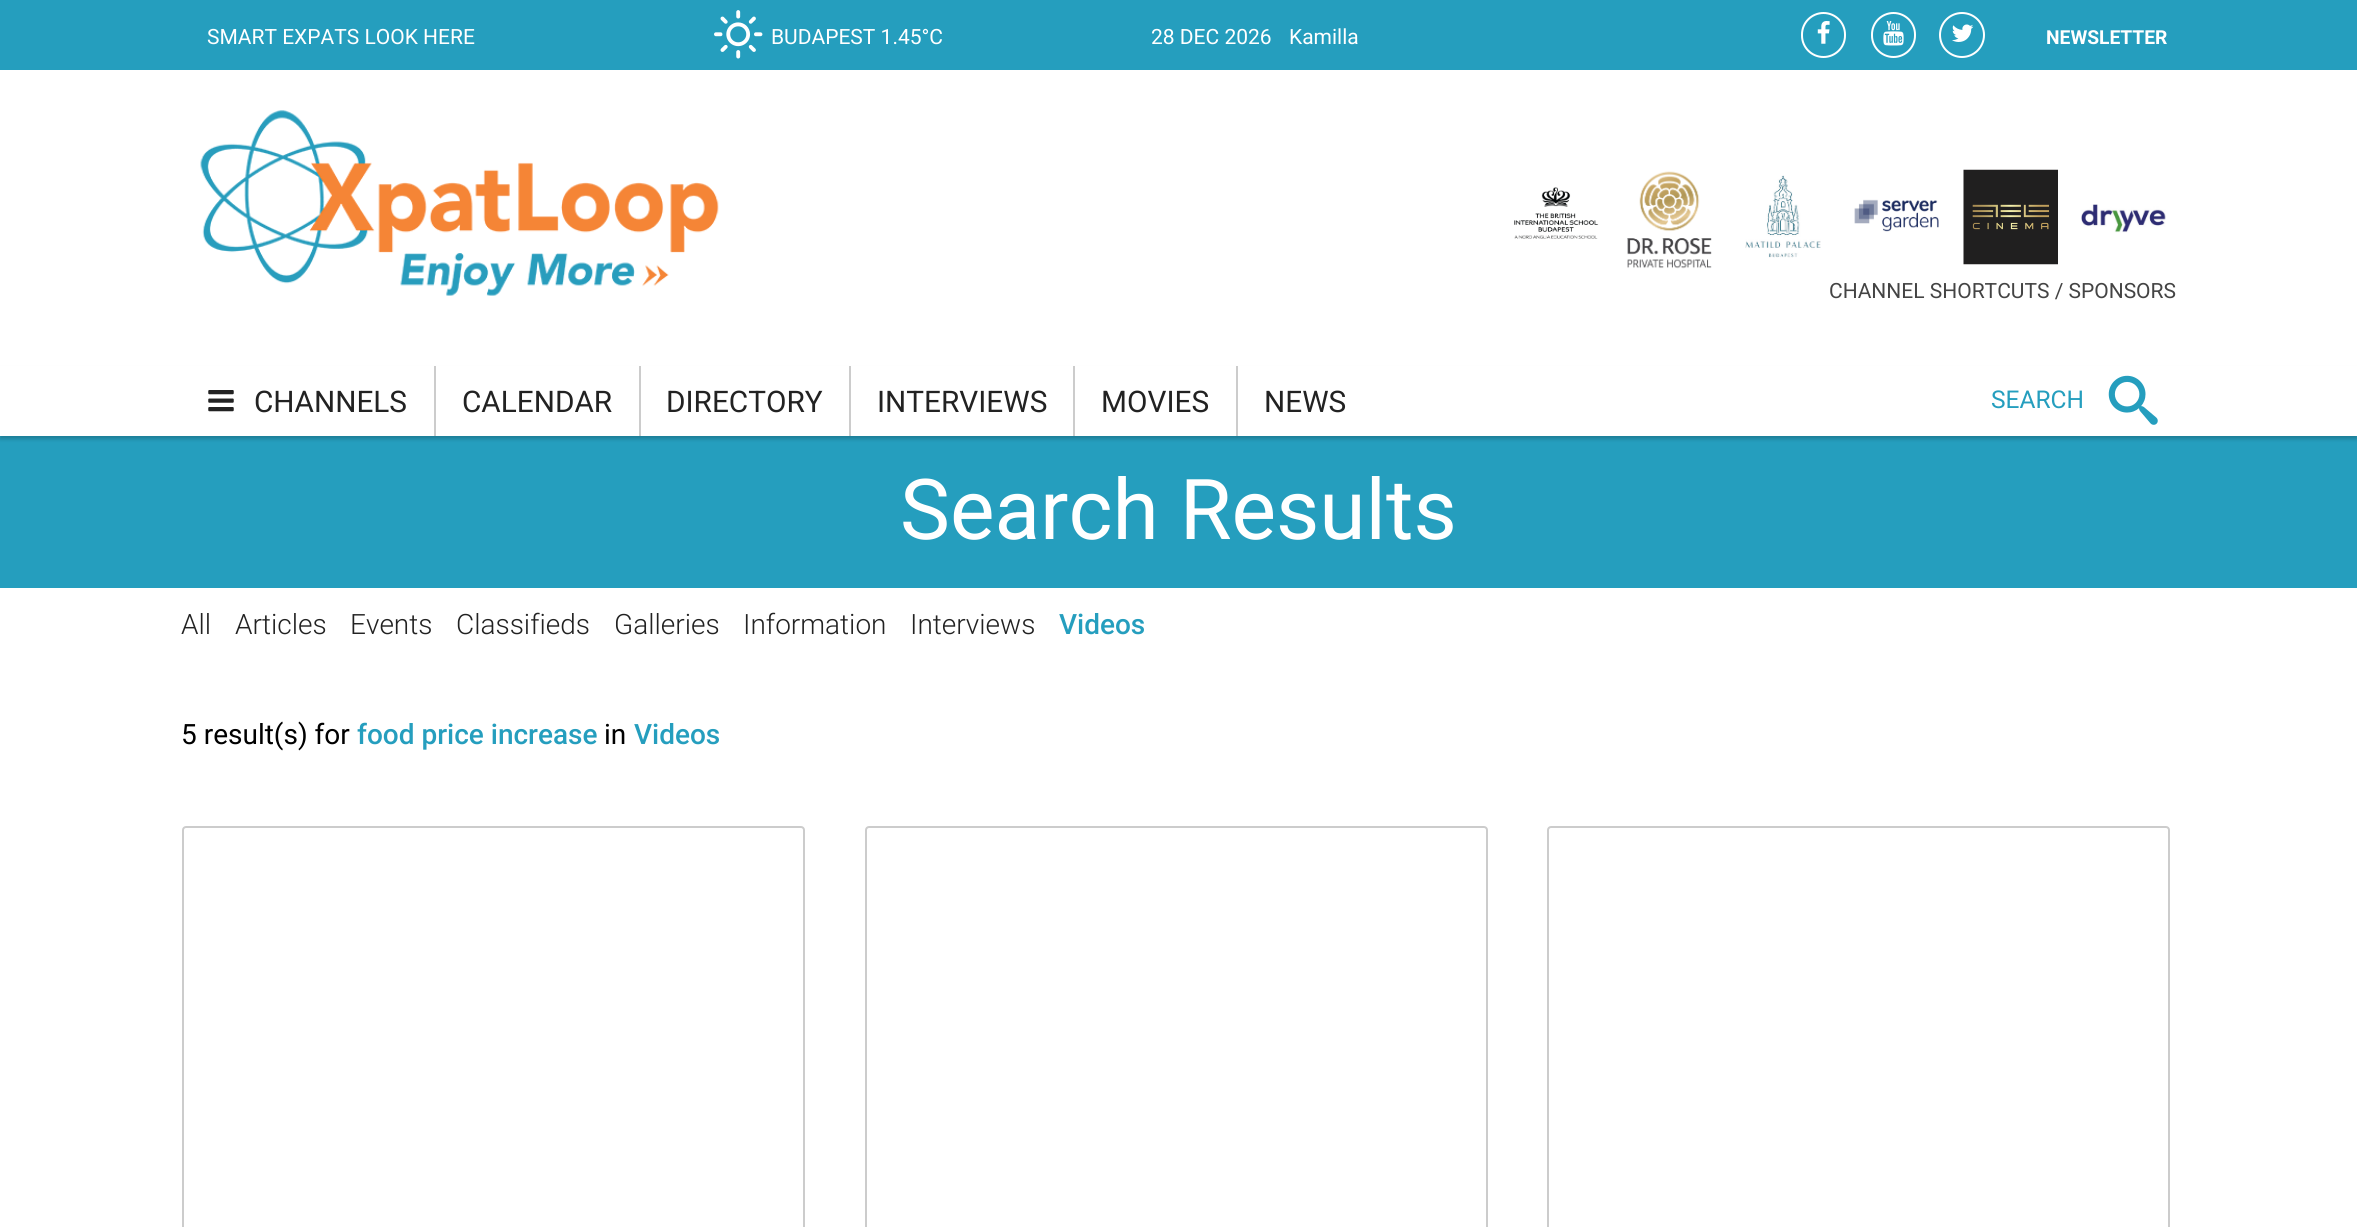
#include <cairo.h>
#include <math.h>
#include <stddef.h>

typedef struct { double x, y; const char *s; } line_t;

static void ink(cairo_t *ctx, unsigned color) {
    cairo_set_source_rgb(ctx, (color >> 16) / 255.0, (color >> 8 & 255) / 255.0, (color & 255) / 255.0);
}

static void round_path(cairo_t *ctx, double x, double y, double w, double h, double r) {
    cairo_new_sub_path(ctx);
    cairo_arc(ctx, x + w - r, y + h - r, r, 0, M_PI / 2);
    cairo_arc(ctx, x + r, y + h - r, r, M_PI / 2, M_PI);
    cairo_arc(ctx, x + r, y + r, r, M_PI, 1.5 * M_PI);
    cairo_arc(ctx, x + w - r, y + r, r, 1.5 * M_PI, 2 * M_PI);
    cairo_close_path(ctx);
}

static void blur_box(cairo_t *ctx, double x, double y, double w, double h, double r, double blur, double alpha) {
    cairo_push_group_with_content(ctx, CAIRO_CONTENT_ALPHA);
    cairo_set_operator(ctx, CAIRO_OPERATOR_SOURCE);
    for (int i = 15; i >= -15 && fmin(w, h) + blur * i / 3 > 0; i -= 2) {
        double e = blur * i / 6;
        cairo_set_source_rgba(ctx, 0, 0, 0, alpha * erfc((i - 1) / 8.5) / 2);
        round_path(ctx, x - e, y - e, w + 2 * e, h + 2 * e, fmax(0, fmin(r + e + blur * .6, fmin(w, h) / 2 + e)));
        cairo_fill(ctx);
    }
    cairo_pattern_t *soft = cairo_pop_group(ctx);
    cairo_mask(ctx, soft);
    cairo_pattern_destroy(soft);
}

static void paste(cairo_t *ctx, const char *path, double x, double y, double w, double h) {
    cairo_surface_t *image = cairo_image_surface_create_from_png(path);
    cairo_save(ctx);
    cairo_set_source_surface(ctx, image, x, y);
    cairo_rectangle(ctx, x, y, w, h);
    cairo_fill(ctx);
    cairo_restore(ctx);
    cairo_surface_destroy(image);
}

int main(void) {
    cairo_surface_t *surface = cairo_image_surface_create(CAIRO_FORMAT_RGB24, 2357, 1227);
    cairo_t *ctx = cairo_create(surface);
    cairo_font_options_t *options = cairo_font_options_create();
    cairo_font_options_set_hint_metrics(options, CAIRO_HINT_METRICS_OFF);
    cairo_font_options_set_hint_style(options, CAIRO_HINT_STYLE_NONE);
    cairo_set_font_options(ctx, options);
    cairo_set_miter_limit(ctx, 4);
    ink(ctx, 0xFFFFFF);
    cairo_paint(ctx);
    ink(ctx, 0x259EBE);
    cairo_rectangle(ctx, 0, 0, 2357, 70);
    cairo_fill(ctx);
    cairo_select_font_face(ctx, "Roboto", CAIRO_FONT_SLANT_NORMAL, CAIRO_FONT_WEIGHT_NORMAL);
    cairo_set_font_size(ctx, 21);
    ink(ctx, 0xFFFFFF);
    cairo_move_to(ctx, 207, 44);
    cairo_show_text(ctx, "SMART EXPATS LOOK HERE");
    paste(ctx, "media/1.png", 714, 10, 49, 49);
    {
        static const line_t items[] = {
            {771, 44, "BUDAPEST 1.45°C"},
            {1151, 44, "28 DEC 2026"},
            {1289, 44, "Kamilla"},
        };
        for (size_t i = 0; i < sizeof items / sizeof *items; i++) {
            cairo_move_to(ctx, items[i].x, items[i].y);
            cairo_show_text(ctx, items[i].s);
        }
    }
    round_path(ctx, 1802, 13, 43, 44, 21.5);
    cairo_stroke(ctx);
    paste(ctx, "media/2.png", 1817, 21, 13, 23);
    round_path(ctx, 1872, 13, 43, 44, 21.5);
    cairo_stroke(ctx);
    paste(ctx, "media/3.png", 1883, 21, 21, 25);
    cairo_arc(ctx, 1962, 35, 22, 0, 2 * M_PI);
    cairo_stroke(ctx);
    paste(ctx, "media/4.png", 1952, 24, 22, 18);
    cairo_select_font_face(ctx, "Roboto", CAIRO_FONT_SLANT_NORMAL, CAIRO_FONT_WEIGHT_BOLD);
    cairo_set_font_size(ctx, 19.25);
    cairo_move_to(ctx, 2046, 44);
    cairo_show_text(ctx, "NEWSLETTER");
    paste(ctx, "media/5.png", 200, 110, 519, 186);
    paste(ctx, "media/6.png", 1514, 187, 85, 52);
    paste(ctx, "media/7.png", 1627, 171, 85, 98);
    paste(ctx, "media/8.png", 1745, 175, 76, 83);
    paste(ctx, "media/9.png", 1854, 199, 85, 33);
    paste(ctx, "media/10.png", 1963, 169, 95, 96);
    paste(ctx, "media/11.png", 2081, 204, 85, 29);
    cairo_select_font_face(ctx, "Roboto", CAIRO_FONT_SLANT_NORMAL, CAIRO_FONT_WEIGHT_NORMAL);
    cairo_set_font_size(ctx, 21);
    ink(ctx, 0x444444);
    cairo_move_to(ctx, 1829, 298);
    cairo_show_text(ctx, "CHANNEL SHORTCUTS / SPONSORS");
    ink(ctx, 0x259EBE);
    cairo_rectangle(ctx, 0, 436, 2357, 152);
    cairo_fill(ctx);
    cairo_save(ctx);
    cairo_set_fill_rule(ctx, CAIRO_FILL_RULE_EVEN_ODD);
    cairo_new_path(ctx);
    cairo_move_to(ctx, 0, 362);
    cairo_line_to(ctx, 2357, 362);
    cairo_line_to(ctx, 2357, 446);
    cairo_line_to(ctx, 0, 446);
    cairo_close_path(ctx);
    cairo_move_to(ctx, 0, 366);
    cairo_line_to(ctx, 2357, 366);
    cairo_line_to(ctx, 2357, 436);
    cairo_line_to(ctx, 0, 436);
    cairo_close_path(ctx);
    cairo_clip(ctx);
    ink(ctx, 0x000000);
    blur_box(ctx, 0, 369, 2357, 70, 0, 2, 0.21);
    cairo_restore(ctx);
    ink(ctx, 0xCCCCCC);
    cairo_rectangle(ctx, 434, 366, 2, 70);
    cairo_fill(ctx);
    paste(ctx, "media/12.png", 208, 390, 26, 22);
    cairo_set_font_size(ctx, 29.75);
    ink(ctx, 0x222222);
    cairo_move_to(ctx, 254, 412);
    cairo_show_text(ctx, "CHANNELS");
    ink(ctx, 0xCCCCCC);
    cairo_rectangle(ctx, 639, 366, 2, 70);
    cairo_fill(ctx);
    ink(ctx, 0x222222);
    cairo_move_to(ctx, 462, 412);
    cairo_show_text(ctx, "CALENDAR");
    ink(ctx, 0xCCCCCC);
    cairo_rectangle(ctx, 849, 366, 2, 70);
    cairo_fill(ctx);
    ink(ctx, 0x222222);
    cairo_move_to(ctx, 666, 412);
    cairo_show_text(ctx, "DIRECTORY");
    ink(ctx, 0xCCCCCC);
    cairo_rectangle(ctx, 1073, 366, 2, 70);
    cairo_fill(ctx);
    ink(ctx, 0x222222);
    cairo_move_to(ctx, 877, 412);
    cairo_show_text(ctx, "INTERVIEWS");
    ink(ctx, 0xCCCCCC);
    cairo_rectangle(ctx, 1236, 366, 2, 70);
    cairo_fill(ctx);
    ink(ctx, 0x222222);
    cairo_move_to(ctx, 1101, 412);
    cairo_show_text(ctx, "MOVIES");
    cairo_move_to(ctx, 1264, 412);
    cairo_show_text(ctx, "NEWS");
    cairo_set_font_size(ctx, 24.5);
    ink(ctx, 0x259EBE);
    cairo_move_to(ctx, 1991, 408);
    cairo_show_text(ctx, "SEARCH");
    paste(ctx, "media/13.png", 2108, 375, 50, 50);
    cairo_set_font_size(ctx, 84);
    ink(ctx, 0xFFFFFF);
    cairo_move_to(ctx, 900, 539);
    cairo_show_text(ctx, "Search Results");
    cairo_select_font_face(ctx, "Roboto Light", CAIRO_FONT_SLANT_NORMAL, CAIRO_FONT_WEIGHT_NORMAL);
    cairo_set_font_size(ctx, 28);
    ink(ctx, 0x222222);
    {
        static const line_t items[] = {
            {181, 634, "All"},
            {235, 634, "Articles"},
            {350, 634, "Events"},
            {456, 634, "Classifieds"},
            {614, 634, "Galleries"},
            {743, 634, "Information"},
            {910, 634, "Interviews"},
        };
        for (size_t i = 0; i < sizeof items / sizeof *items; i++) {
            cairo_move_to(ctx, items[i].x, items[i].y);
            cairo_show_text(ctx, items[i].s);
        }
    }
    cairo_select_font_face(ctx, "Roboto Medium", CAIRO_FONT_SLANT_NORMAL, CAIRO_FONT_WEIGHT_NORMAL);
    ink(ctx, 0x259EBE);
    cairo_move_to(ctx, 1059, 634);
    cairo_show_text(ctx, "Videos");
    cairo_select_font_face(ctx, "Roboto", CAIRO_FONT_SLANT_NORMAL, CAIRO_FONT_WEIGHT_NORMAL);
    ink(ctx, 0x000000);
    cairo_move_to(ctx, 181, 744);
    cairo_show_text(ctx, "5 result(s) for");
    cairo_select_font_face(ctx, "Roboto Medium", CAIRO_FONT_SLANT_NORMAL, CAIRO_FONT_WEIGHT_NORMAL);
    ink(ctx, 0x259EBE);
    cairo_move_to(ctx, 357, 744);
    cairo_show_text(ctx, "food price increase");
    cairo_select_font_face(ctx, "Roboto", CAIRO_FONT_SLANT_NORMAL, CAIRO_FONT_WEIGHT_NORMAL);
    ink(ctx, 0x000000);
    cairo_move_to(ctx, 604, 744);
    cairo_show_text(ctx, "in");
    cairo_select_font_face(ctx, "Roboto Medium", CAIRO_FONT_SLANT_NORMAL, CAIRO_FONT_WEIGHT_NORMAL);
    ink(ctx, 0x259EBE);
    cairo_move_to(ctx, 634, 744);
    cairo_show_text(ctx, "Videos");
    round_path(ctx, 183, 827, 621, 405, 3);
    ink(ctx, 0xCCCCCC);
    cairo_stroke(ctx);
    round_path(ctx, 866, 827, 621, 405, 3);
    cairo_stroke(ctx);
    round_path(ctx, 1548, 827, 621, 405, 3);
    cairo_stroke(ctx);
    cairo_surface_write_to_png(surface, "image.png");
    cairo_font_options_destroy(options);
    cairo_destroy(ctx);
    cairo_surface_destroy(surface);
    return 0;
}
